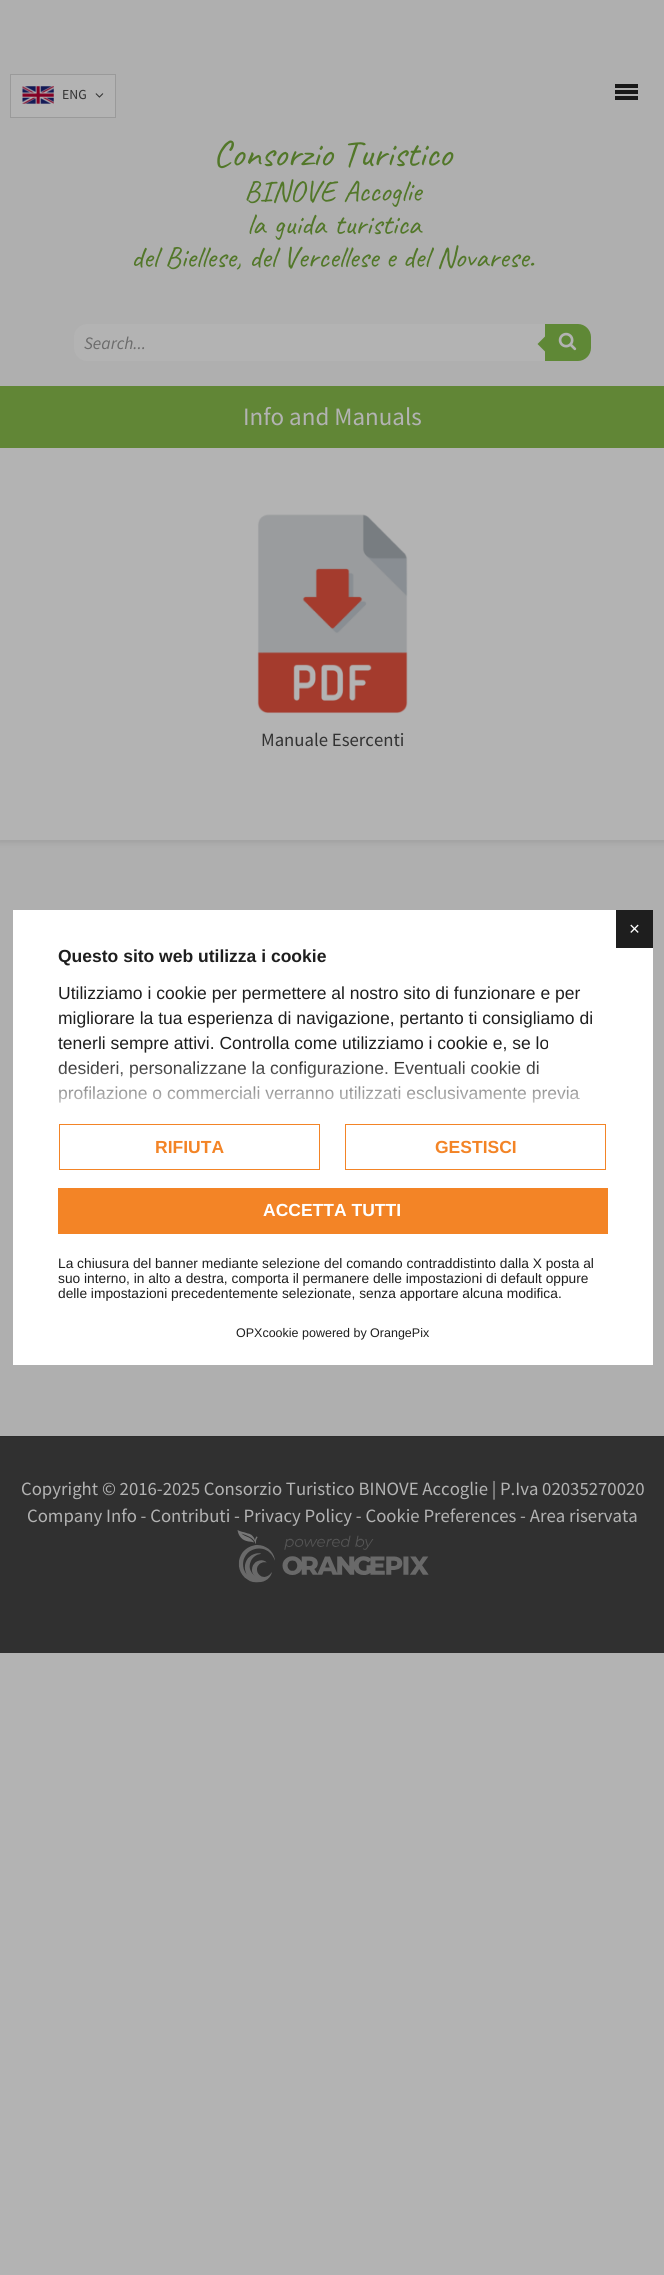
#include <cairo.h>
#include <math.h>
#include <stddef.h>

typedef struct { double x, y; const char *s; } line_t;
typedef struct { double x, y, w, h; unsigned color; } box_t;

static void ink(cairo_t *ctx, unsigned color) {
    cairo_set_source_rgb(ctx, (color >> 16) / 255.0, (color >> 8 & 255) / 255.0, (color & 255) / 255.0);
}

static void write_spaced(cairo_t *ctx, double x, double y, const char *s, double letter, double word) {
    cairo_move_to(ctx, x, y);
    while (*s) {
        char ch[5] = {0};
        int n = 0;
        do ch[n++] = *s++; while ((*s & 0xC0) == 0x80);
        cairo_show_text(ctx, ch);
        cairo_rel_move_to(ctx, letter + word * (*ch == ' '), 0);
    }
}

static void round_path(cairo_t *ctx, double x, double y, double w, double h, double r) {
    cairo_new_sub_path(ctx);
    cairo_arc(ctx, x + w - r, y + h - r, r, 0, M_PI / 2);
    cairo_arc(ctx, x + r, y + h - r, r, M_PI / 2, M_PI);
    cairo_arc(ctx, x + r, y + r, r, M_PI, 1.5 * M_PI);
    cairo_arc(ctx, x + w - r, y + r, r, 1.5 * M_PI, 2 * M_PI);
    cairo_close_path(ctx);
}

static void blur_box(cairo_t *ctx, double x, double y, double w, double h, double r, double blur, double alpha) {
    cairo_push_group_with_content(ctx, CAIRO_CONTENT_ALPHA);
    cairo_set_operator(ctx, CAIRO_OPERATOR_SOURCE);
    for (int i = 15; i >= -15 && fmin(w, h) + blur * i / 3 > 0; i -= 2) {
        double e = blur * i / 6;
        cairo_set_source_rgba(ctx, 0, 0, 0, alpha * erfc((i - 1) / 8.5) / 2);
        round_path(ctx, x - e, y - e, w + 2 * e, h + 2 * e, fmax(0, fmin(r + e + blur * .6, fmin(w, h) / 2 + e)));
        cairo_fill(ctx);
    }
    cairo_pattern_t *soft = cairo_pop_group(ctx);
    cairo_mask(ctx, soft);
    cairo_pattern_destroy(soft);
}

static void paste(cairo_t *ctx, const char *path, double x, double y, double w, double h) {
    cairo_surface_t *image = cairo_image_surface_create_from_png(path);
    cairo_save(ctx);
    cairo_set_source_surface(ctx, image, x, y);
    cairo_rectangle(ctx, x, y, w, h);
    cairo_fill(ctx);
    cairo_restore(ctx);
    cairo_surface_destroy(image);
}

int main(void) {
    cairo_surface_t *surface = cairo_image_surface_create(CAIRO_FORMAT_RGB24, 664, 2275);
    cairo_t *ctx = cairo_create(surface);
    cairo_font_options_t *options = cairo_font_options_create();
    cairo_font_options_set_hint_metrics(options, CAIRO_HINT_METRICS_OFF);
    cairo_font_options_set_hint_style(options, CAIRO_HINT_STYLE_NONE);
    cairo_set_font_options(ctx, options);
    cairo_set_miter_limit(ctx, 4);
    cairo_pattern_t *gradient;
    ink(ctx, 0xB3B3B3);
    cairo_paint(ctx);
    ink(ctx, 0xAFAFAF);
    cairo_rectangle(ctx, 0, 840, 664, 596);
    cairo_fill(ctx);
    ink(ctx, 0x000000);
    blur_box(ctx, -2, 384, 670, 459, 0, 3, 0.08);
    ink(ctx, 0xAFAFAF);
    cairo_rectangle(ctx, 0, 0, 664, 386);
    cairo_fill(ctx);
    ink(ctx, 0xB3B3B3);
    cairo_rectangle(ctx, 10.5, 74.5, 105, 43);
    cairo_fill_preserve(ctx);
    ink(ctx, 0x9A9A9A);
    cairo_set_line_width(ctx, 1);
    cairo_stroke(ctx);
    paste(ctx, "media/1.png", 22, 86, 32, 18);
    cairo_select_font_face(ctx, "Source Sans Pro", CAIRO_FONT_SLANT_NORMAL, CAIRO_FONT_WEIGHT_NORMAL);
    cairo_set_font_size(ctx, 13.75);
    ink(ctx, 0x323232);
    cairo_move_to(ctx, 62, 99);
    cairo_show_text(ctx, "ENG");
    paste(ctx, "media/2.png", 95, 93, 9, 5);
    {
        static const box_t items[] = {
            {615, 84, 23, 4, 0x181818},
            {615, 90, 23, 4, 0x181818},
            {615, 96, 23, 4, 0x181818},
        };
        for (size_t i = 0; i < sizeof items / sizeof *items; i++) {
            ink(ctx, items[i].color);
            cairo_rectangle(ctx, items[i].x, items[i].y, items[i].w, items[i].h);
            cairo_fill(ctx);
        }
    }
    cairo_select_font_face(ctx, "Caveat", CAIRO_FONT_SLANT_NORMAL, CAIRO_FONT_WEIGHT_NORMAL);
    cairo_set_font_size(ctx, 37.5);
    ink(ctx, 0x527729);
    cairo_move_to(ctx, 213, 166);
    cairo_show_text(ctx, "Consorzio Turistico");
    cairo_set_font_size(ctx, 30);
    write_spaced(ctx, 244, 201, "BINOVE Accoglie", 0, 1);
    write_spaced(ctx, 247, 234, "la guida turistica", 0, 1);
    cairo_move_to(ctx, 131, 267);
    cairo_show_text(ctx, "del Biellese, del Vercellese e del Novarese.");
    ink(ctx, 0xB3B3B3);
    cairo_new_path(ctx);
    cairo_move_to(ctx, 87, 324);
    cairo_line_to(ctx, 545, 324);
    cairo_line_to(ctx, 545, 361);
    cairo_line_to(ctx, 87, 361);
    cairo_curve_to(ctx, 80, 361, 74, 355, 74, 348);
    cairo_line_to(ctx, 74, 337);
    cairo_curve_to(ctx, 74, 330, 80, 324, 87, 324);
    cairo_close_path(ctx);
    cairo_fill(ctx);
    cairo_select_font_face(ctx, "Source Sans Pro", CAIRO_FONT_SLANT_ITALIC, CAIRO_FONT_WEIGHT_NORMAL);
    cairo_set_font_size(ctx, 17.5);
    ink(ctx, 0x6B6B6B);
    cairo_move_to(ctx, 84, 349);
    cairo_show_text(ctx, "Search...");
    ink(ctx, 0x5F8836);
    cairo_new_path(ctx);
    cairo_move_to(ctx, 545, 324);
    cairo_line_to(ctx, 578, 324);
    cairo_curve_to(ctx, 585, 324, 591, 330, 591, 337);
    cairo_line_to(ctx, 591, 348);
    cairo_curve_to(ctx, 591, 355, 585, 361, 578, 361);
    cairo_line_to(ctx, 545, 361);
    cairo_close_path(ctx);
    cairo_fill(ctx);
    cairo_new_path(ctx);
    cairo_move_to(ctx, 547.5, 334);
    cairo_line_to(ctx, 547.5, 354);
    cairo_line_to(ctx, 537.5, 344);
    cairo_close_path(ctx);
    cairo_fill(ctx);
    paste(ctx, "media/3.png", 558, 332, 19, 19);
    ink(ctx, 0xB3B3B3);
    cairo_rectangle(ctx, 0, 448, 664, 392);
    cairo_fill(ctx);
    ink(ctx, 0x618636);
    cairo_rectangle(ctx, 0, 386, 664, 62);
    cairo_fill(ctx);
    cairo_select_font_face(ctx, "Source Sans Pro", CAIRO_FONT_SLANT_NORMAL, CAIRO_FONT_WEIGHT_NORMAL);
    cairo_set_font_size(ctx, 25);
    ink(ctx, 0xB3B3B3);
    cairo_move_to(ctx, 243, 425);
    cairo_show_text(ctx, "Info and Manuals");
    paste(ctx, "media/4.png", 257, 514, 151, 200);
    cairo_set_font_size(ctx, 18.75);
    ink(ctx, 0x323232);
    cairo_move_to(ctx, 261, 746);
    cairo_show_text(ctx, "Manuale Esercenti");
    ink(ctx, 0x303030);
    cairo_rectangle(ctx, 0, 1437, 664, 216);
    cairo_fill(ctx);
    ink(ctx, 0x2C2C2C);
    cairo_rectangle(ctx, 0, 1436, 664, 1);
    cairo_fill(ctx);
    ink(ctx, 0xB3B3B3);
    cairo_move_to(ctx, 21, 1495);
    cairo_show_text(ctx, "Copyright © 2016-2025 Consorzio Turistico BINOVE Accoglie | P.Iva 02035270020");
    cairo_move_to(ctx, 27, 1522);
    cairo_show_text(ctx, "Company Info - Contributi - Privacy Policy - Cookie Preferences - Area riservata");
    paste(ctx, "media/5.png", 237, 1530, 192, 53);
    ink(ctx, 0xFFFFFF);
    cairo_rectangle(ctx, 13, 910, 640, 455);
    cairo_fill(ctx);
    ink(ctx, 0x1E1E1E);
    cairo_rectangle(ctx, 616, 910, 37, 38);
    cairo_fill(ctx);
    cairo_select_font_face(ctx, "Liberation Sans", CAIRO_FONT_SLANT_NORMAL, CAIRO_FONT_WEIGHT_NORMAL);
    ink(ctx, 0xFFFFFF);
    cairo_move_to(ctx, 629, 935);
    cairo_show_text(ctx, "×");
    cairo_select_font_face(ctx, "Liberation Sans", CAIRO_FONT_SLANT_NORMAL, CAIRO_FONT_WEIGHT_BOLD);
    cairo_set_font_size(ctx, 17.5);
    ink(ctx, 0x1E1E1E);
    cairo_move_to(ctx, 58, 962);
    cairo_show_text(ctx, "Questo sito web utilizza i cookie");
    cairo_select_font_face(ctx, "Liberation Sans", CAIRO_FONT_SLANT_NORMAL, CAIRO_FONT_WEIGHT_NORMAL);
    {
        static const line_t items[] = {
            {58, 999, "Utilizziamo i cookie per permettere al nostro sito di funzionare e per"},
            {58, 1024, "migliorare la tua esperienza di navigazione, pertanto ti consigliamo di"},
            {58, 1049, "tenerli sempre attivi. Controlla come utilizziamo i cookie e, se lo"},
            {58, 1074, "desideri, personalizzane la configurazione. Eventuali cookie di"},
            {58, 1099, "profilazione o commerciali verranno utilizzati esclusivamente previa"},
        };
        for (size_t i = 0; i < sizeof items / sizeof *items; i++) {
            cairo_move_to(ctx, items[i].x, items[i].y);
            cairo_show_text(ctx, items[i].s);
        }
    }
    gradient = cairo_pattern_create_linear(333, 1120, 333, 1058);
    cairo_pattern_add_color_stop_rgba(gradient, 0, 1, 1, 1, 1);
    cairo_pattern_add_color_stop_rgba(gradient, 1, 1, 1, 1, 0);
    cairo_set_source(ctx, gradient);
    cairo_pattern_destroy(gradient);
    cairo_rectangle(ctx, 58, 1061, 521, 42);
    cairo_fill(ctx);
    cairo_rectangle(ctx, 59.5, 1124.5, 260, 45);
    ink(ctx, 0xF38426);
    cairo_stroke(ctx);
    cairo_select_font_face(ctx, "Liberation Sans", CAIRO_FONT_SLANT_NORMAL, CAIRO_FONT_WEIGHT_BOLD);
    cairo_move_to(ctx, 155, 1153);
    cairo_show_text(ctx, "RIFIUTA");
    cairo_rectangle(ctx, 345.5, 1124.5, 260, 45);
    cairo_stroke(ctx);
    cairo_move_to(ctx, 435, 1153);
    cairo_show_text(ctx, "GESTISCI");
    cairo_rectangle(ctx, 58, 1188, 550, 46);
    cairo_fill(ctx);
    ink(ctx, 0xFFFFFF);
    cairo_move_to(ctx, 263, 1216);
    cairo_show_text(ctx, "ACCETTA TUTTI");
    cairo_select_font_face(ctx, "Liberation Sans", CAIRO_FONT_SLANT_NORMAL, CAIRO_FONT_WEIGHT_NORMAL);
    cairo_set_font_size(ctx, 13.75);
    ink(ctx, 0x1E1E1E);
    {
        static const line_t items[] = {
            {58, 1268, "La chiusura del banner mediante selezione del comando contraddistinto dalla X posta al"},
            {58, 1283, "suo interno, in alto a destra, comporta il permanere delle impostazioni di default oppure"},
            {58, 1298, "delle impostazioni precedentemente selezionate, senza apportare alcuna modifica."},
        };
        for (size_t i = 0; i < sizeof items / sizeof *items; i++) {
            cairo_move_to(ctx, items[i].x, items[i].y);
            cairo_show_text(ctx, items[i].s);
        }
    }
    cairo_set_font_size(ctx, 12.5);
    cairo_move_to(ctx, 236, 1337);
    cairo_show_text(ctx, "OPXcookie powered by OrangePix");
    cairo_surface_write_to_png(surface, "image.png");
    cairo_font_options_destroy(options);
    cairo_destroy(ctx);
    cairo_surface_destroy(surface);
    return 0;
}
